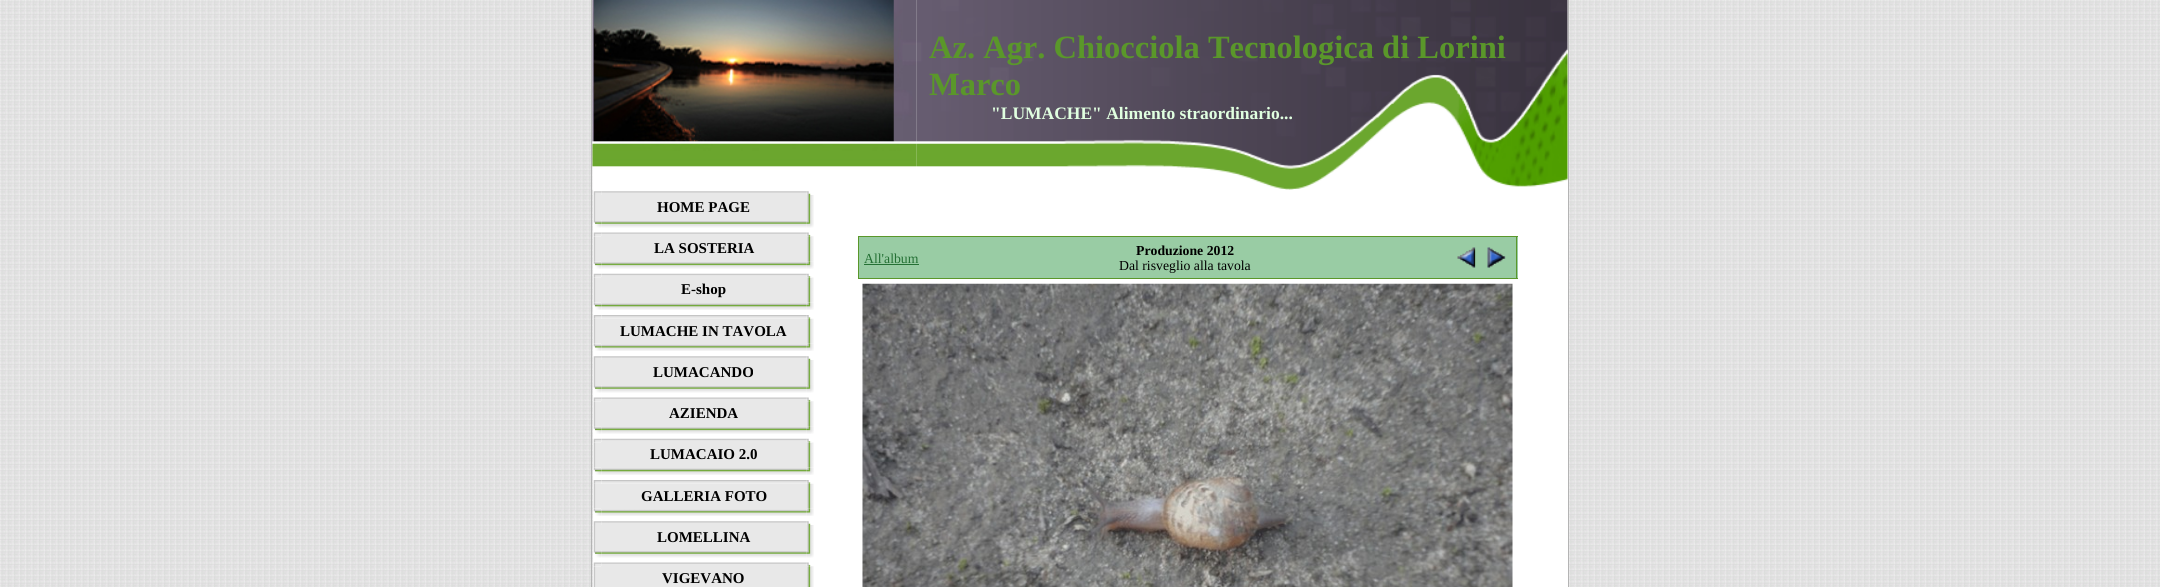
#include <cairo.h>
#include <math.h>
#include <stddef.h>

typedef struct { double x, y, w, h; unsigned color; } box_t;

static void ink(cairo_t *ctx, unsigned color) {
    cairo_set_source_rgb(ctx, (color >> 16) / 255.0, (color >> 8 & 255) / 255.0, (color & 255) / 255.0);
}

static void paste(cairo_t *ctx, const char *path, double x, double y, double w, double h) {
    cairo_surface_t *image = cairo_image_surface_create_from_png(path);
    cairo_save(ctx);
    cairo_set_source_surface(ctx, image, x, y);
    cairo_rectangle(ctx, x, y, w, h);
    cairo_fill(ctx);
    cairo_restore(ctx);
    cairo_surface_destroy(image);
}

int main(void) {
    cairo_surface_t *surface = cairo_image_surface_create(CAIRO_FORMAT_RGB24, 2160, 587);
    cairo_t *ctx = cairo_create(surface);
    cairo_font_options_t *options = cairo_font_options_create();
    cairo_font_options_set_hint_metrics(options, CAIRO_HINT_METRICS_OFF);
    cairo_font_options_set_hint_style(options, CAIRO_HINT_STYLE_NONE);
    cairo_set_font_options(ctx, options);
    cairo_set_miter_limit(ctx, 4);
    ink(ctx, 0xFFFFFF);
    cairo_paint(ctx);
    paste(ctx, "media/1.png", 0, 0, 2160, 587);
    ink(ctx, 0xB4B4B4);
    cairo_rectangle(ctx, 591, 0, 1, 587);
    cairo_fill(ctx);
    ink(ctx, 0xFFFFFF);
    cairo_rectangle(ctx, 593, 0, 975, 587);
    cairo_fill(ctx);
    paste(ctx, "media/3.png", 916, 0, 652, 190);
    paste(ctx, "media/2.png", 592, 0, 325, 190);
    cairo_select_font_face(ctx, "Liberation Serif", CAIRO_FONT_SLANT_NORMAL, CAIRO_FONT_WEIGHT_BOLD);
    cairo_set_font_size(ctx, 32.5);
    ink(ctx, 0x5A972A);
    cairo_move_to(ctx, 929, 58);
    cairo_show_text(ctx, "Az. Agr. Chiocciola Tecnologica di Lorini");
    cairo_move_to(ctx, 929, 95);
    cairo_show_text(ctx, "Marco");
    cairo_set_font_size(ctx, 17.5);
    ink(ctx, 0xE0FFE0);
    cairo_move_to(ctx, 991, 119);
    cairo_show_text(ctx, "\"LUMACHE\" Alimento straordinario...");
    paste(ctx, "media/5.png", 601, 191, 206, 4);
    paste(ctx, "media/4.png", 593, 191, 9, 4);
    paste(ctx, "media/6.png", 806, 191, 5, 4);
    paste(ctx, "media/7.png", 593, 195, 8, 25);
    ink(ctx, 0xE8E8E8);
    cairo_rectangle(ctx, 601, 195, 206, 25);
    cairo_fill(ctx);
    cairo_set_font_size(ctx, 15);
    ink(ctx, 0x000000);
    cairo_move_to(ctx, 657, 212);
    cairo_show_text(ctx, "HOME PAGE");
    paste(ctx, "media/8.png", 807, 195, 7, 25);
    paste(ctx, "media/10.png", 601, 220, 206, 8);
    paste(ctx, "media/9.png", 593, 220, 9, 8);
    paste(ctx, "media/11.png", 806, 220, 8, 8);
    paste(ctx, "media/13.png", 601, 232, 206, 4);
    paste(ctx, "media/12.png", 593, 232, 9, 4);
    ink(ctx, 0xE8E8E8);
    cairo_rectangle(ctx, 601, 236, 206, 26);
    cairo_fill(ctx);
    paste(ctx, "media/16.png", 807, 236, 7, 26);
    paste(ctx, "media/14.png", 806, 232, 5, 5);
    paste(ctx, "media/15.png", 593, 236, 8, 26);
    ink(ctx, 0x000000);
    cairo_move_to(ctx, 654, 253);
    cairo_show_text(ctx, "LA SOSTERIA");
    paste(ctx, "media/18.png", 601, 262, 206, 7);
    paste(ctx, "media/17.png", 593, 261, 9, 8);
    paste(ctx, "media/19.png", 806, 261, 8, 8);
    paste(ctx, "media/23.png", 593, 277, 8, 26);
    paste(ctx, "media/20.png", 593, 273, 8, 5);
    paste(ctx, "media/21.png", 601, 273, 206, 4);
    ink(ctx, 0xE8E8E8);
    cairo_rectangle(ctx, 601, 277, 206, 26);
    cairo_fill(ctx);
    paste(ctx, "media/24.png", 807, 277, 7, 26);
    paste(ctx, "media/22.png", 806, 273, 6, 5);
    ink(ctx, 0x000000);
    cairo_move_to(ctx, 681, 294);
    cairo_show_text(ctx, "E-shop");
    paste(ctx, "media/26.png", 601, 303, 206, 7);
    paste(ctx, "media/25.png", 593, 302, 9, 8);
    paste(ctx, "media/27.png", 806, 302, 8, 8);
    paste(ctx, "media/29.png", 601, 315, 206, 4);
    paste(ctx, "media/31.png", 593, 318, 9, 26);
    paste(ctx, "media/28.png", 593, 315, 8, 4);
    paste(ctx, "media/32.png", 807, 318, 7, 26);
    paste(ctx, "media/30.png", 806, 315, 5, 4);
    ink(ctx, 0xE8E8E8);
    cairo_rectangle(ctx, 601, 319, 206, 25);
    cairo_fill(ctx);
    ink(ctx, 0x000000);
    cairo_move_to(ctx, 620, 336);
    cairo_show_text(ctx, "LUMACHE IN TAVOLA");
    paste(ctx, "media/34.png", 601, 344, 206, 7);
    paste(ctx, "media/33.png", 593, 344, 9, 7);
    paste(ctx, "media/35.png", 806, 343, 8, 8);
    paste(ctx, "media/36.png", 601, 356, 206, 4);
    paste(ctx, "media/4.png", 593, 356, 9, 4);
    paste(ctx, "media/6.png", 806, 356, 5, 4);
    paste(ctx, "media/7.png", 593, 360, 8, 25);
    ink(ctx, 0xE8E8E8);
    cairo_rectangle(ctx, 601, 360, 206, 25);
    cairo_fill(ctx);
    ink(ctx, 0x000000);
    cairo_move_to(ctx, 653, 377);
    cairo_show_text(ctx, "LUMACANDO");
    paste(ctx, "media/37.png", 807, 360, 7, 25);
    paste(ctx, "media/38.png", 601, 385, 206, 8);
    paste(ctx, "media/9.png", 593, 385, 9, 8);
    paste(ctx, "media/11.png", 806, 385, 8, 8);
    paste(ctx, "media/39.png", 601, 397, 206, 4);
    paste(ctx, "media/12.png", 593, 397, 9, 4);
    ink(ctx, 0xE8E8E8);
    cairo_rectangle(ctx, 601, 401, 206, 26);
    cairo_fill(ctx);
    paste(ctx, "media/40.png", 807, 401, 7, 26);
    paste(ctx, "media/14.png", 806, 397, 5, 5);
    paste(ctx, "media/15.png", 593, 401, 8, 26);
    ink(ctx, 0x000000);
    cairo_move_to(ctx, 669, 418);
    cairo_show_text(ctx, "AZIENDA");
    paste(ctx, "media/41.png", 601, 427, 206, 7);
    paste(ctx, "media/17.png", 593, 426, 9, 8);
    paste(ctx, "media/19.png", 806, 426, 8, 8);
    paste(ctx, "media/23.png", 593, 442, 8, 26);
    paste(ctx, "media/20.png", 593, 438, 8, 5);
    paste(ctx, "media/42.png", 601, 438, 206, 4);
    ink(ctx, 0xE8E8E8);
    cairo_rectangle(ctx, 601, 442, 206, 26);
    cairo_fill(ctx);
    paste(ctx, "media/24.png", 807, 442, 7, 26);
    paste(ctx, "media/22.png", 806, 438, 6, 5);
    ink(ctx, 0x000000);
    cairo_move_to(ctx, 650, 459);
    cairo_show_text(ctx, "LUMACAIO 2.0");
    paste(ctx, "media/43.png", 601, 468, 206, 7);
    paste(ctx, "media/25.png", 593, 467, 9, 8);
    paste(ctx, "media/27.png", 806, 467, 8, 8);
    paste(ctx, "media/29.png", 601, 480, 206, 4);
    paste(ctx, "media/31.png", 593, 483, 9, 26);
    paste(ctx, "media/28.png", 593, 480, 8, 4);
    paste(ctx, "media/44.png", 807, 483, 7, 26);
    paste(ctx, "media/30.png", 806, 480, 5, 4);
    ink(ctx, 0xE8E8E8);
    cairo_rectangle(ctx, 601, 484, 206, 25);
    cairo_fill(ctx);
    ink(ctx, 0x000000);
    cairo_move_to(ctx, 641, 501);
    cairo_show_text(ctx, "GALLERIA FOTO");
    paste(ctx, "media/45.png", 601, 509, 206, 7);
    paste(ctx, "media/33.png", 593, 509, 9, 7);
    paste(ctx, "media/35.png", 806, 508, 8, 8);
    paste(ctx, "media/46.png", 601, 521, 206, 4);
    paste(ctx, "media/4.png", 593, 521, 9, 4);
    paste(ctx, "media/6.png", 806, 521, 5, 4);
    paste(ctx, "media/7.png", 593, 525, 8, 25);
    ink(ctx, 0xE8E8E8);
    cairo_rectangle(ctx, 601, 525, 206, 25);
    cairo_fill(ctx);
    ink(ctx, 0x000000);
    cairo_move_to(ctx, 657, 542);
    cairo_show_text(ctx, "LOMELLINA");
    paste(ctx, "media/47.png", 807, 525, 7, 25);
    paste(ctx, "media/38.png", 601, 550, 206, 8);
    paste(ctx, "media/9.png", 593, 550, 9, 8);
    paste(ctx, "media/11.png", 806, 550, 8, 8);
    paste(ctx, "media/39.png", 601, 562, 206, 4);
    paste(ctx, "media/12.png", 593, 562, 9, 4);
    ink(ctx, 0xE8E8E8);
    cairo_rectangle(ctx, 601, 566, 206, 21);
    cairo_fill(ctx);
    paste(ctx, "media/49.png", 807, 566, 7, 21);
    paste(ctx, "media/14.png", 806, 562, 5, 5);
    paste(ctx, "media/48.png", 593, 566, 8, 21);
    ink(ctx, 0x000000);
    cairo_move_to(ctx, 662, 583);
    cairo_show_text(ctx, "VIGEVANO");
    {
        static const box_t items[] = {
            {859, 237, 659, 41, 0x99CCA4},
            {858, 236, 660, 1, 0x5A972A},
            {858, 278, 593, 1, 0x5A972A},
            {858, 236, 1, 43, 0x5A972A},
        };
        for (size_t i = 0; i < sizeof items / sizeof *items; i++) {
            ink(ctx, items[i].color);
            cairo_rectangle(ctx, items[i].x, items[i].y, items[i].w, items[i].h);
            cairo_fill(ctx);
        }
    }
    cairo_select_font_face(ctx, "Liberation Serif", CAIRO_FONT_SLANT_NORMAL, CAIRO_FONT_WEIGHT_NORMAL);
    cairo_set_font_size(ctx, 13.75);
    ink(ctx, 0x247034);
    cairo_move_to(ctx, 864, 263);
    cairo_show_text(ctx, "All'album");
    cairo_rectangle(ctx, 864, 264, 55, 1);
    cairo_fill(ctx);
    cairo_select_font_face(ctx, "Liberation Serif", CAIRO_FONT_SLANT_NORMAL, CAIRO_FONT_WEIGHT_BOLD);
    ink(ctx, 0x000000);
    cairo_move_to(ctx, 1136, 255);
    cairo_show_text(ctx, "Produzione 2012");
    cairo_select_font_face(ctx, "Liberation Serif", CAIRO_FONT_SLANT_NORMAL, CAIRO_FONT_WEIGHT_NORMAL);
    cairo_move_to(ctx, 1119, 270);
    cairo_show_text(ctx, "Dal risveglio alla tavola");
    ink(ctx, 0x5A972A);
    cairo_rectangle(ctx, 1516, 236, 1, 43);
    cairo_fill(ctx);
    cairo_rectangle(ctx, 1451, 278, 67, 1);
    cairo_fill(ctx);
    paste(ctx, "media/50.png", 1457, 247, 19, 21);
    paste(ctx, "media/51.png", 1487, 247, 19, 21);
    paste(ctx, "media/52.png", 862, 283, 651, 304);
    ink(ctx, 0xB4B4B4);
    cairo_rectangle(ctx, 1568, 0, 1, 587);
    cairo_fill(ctx);
    cairo_surface_write_to_png(surface, "image.png");
    cairo_font_options_destroy(options);
    cairo_destroy(ctx);
    cairo_surface_destroy(surface);
    return 0;
}
